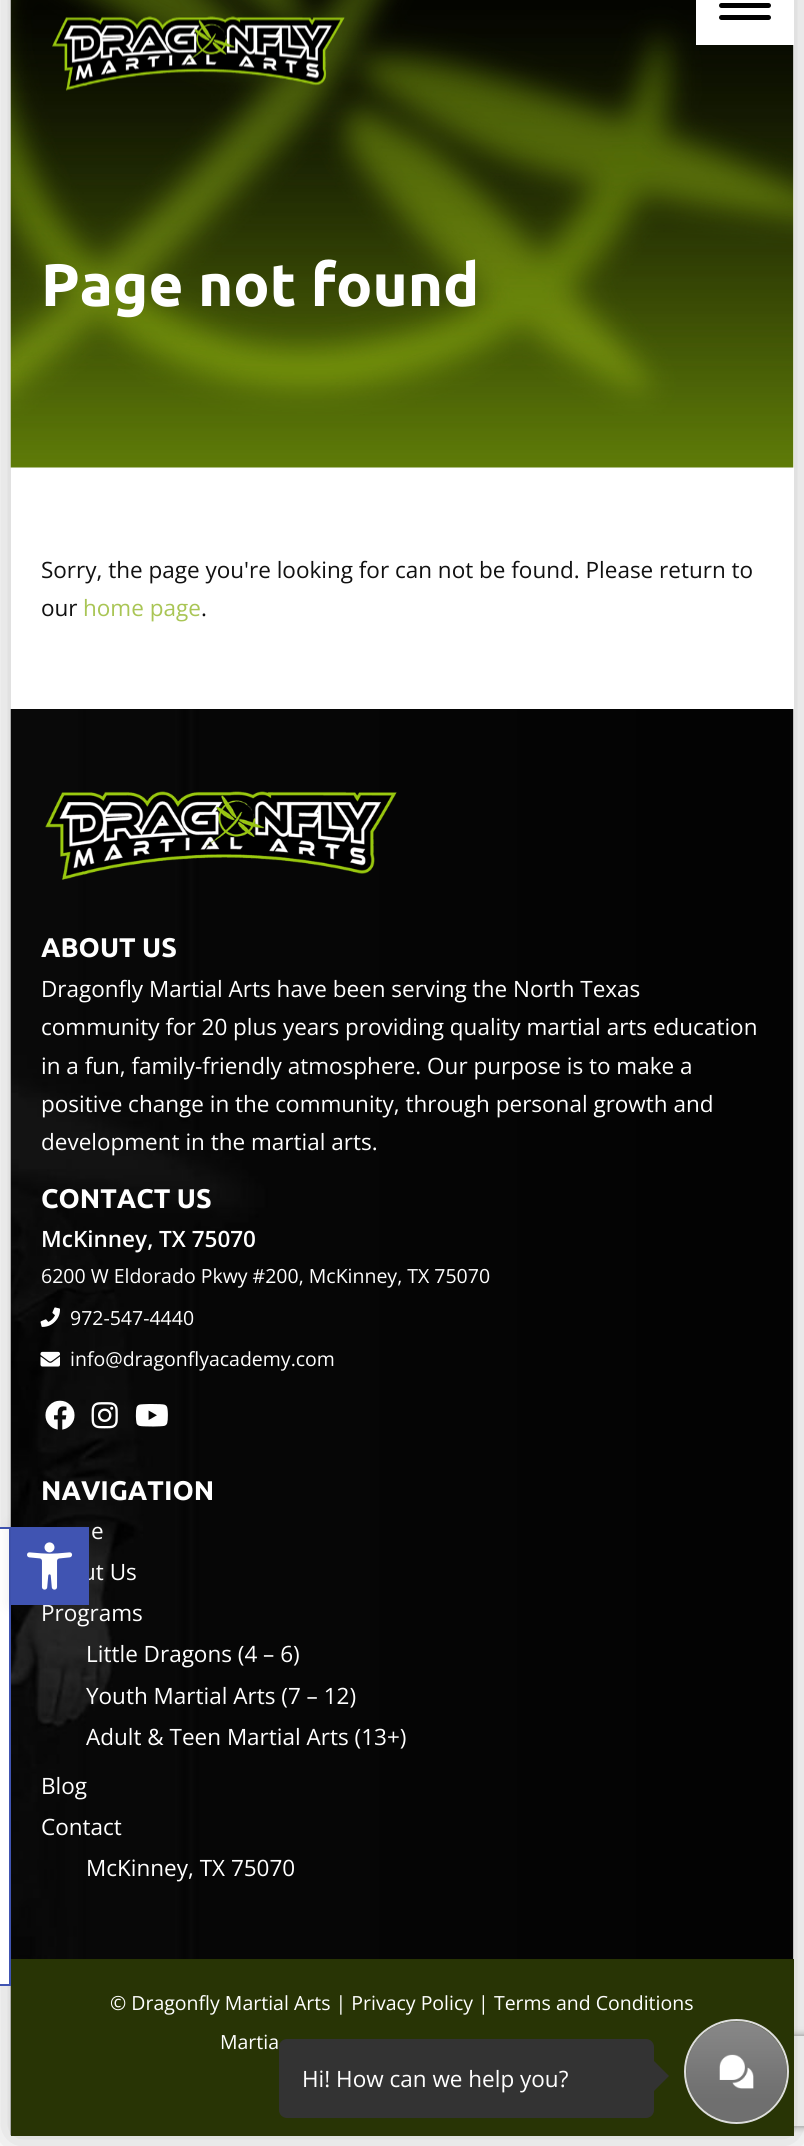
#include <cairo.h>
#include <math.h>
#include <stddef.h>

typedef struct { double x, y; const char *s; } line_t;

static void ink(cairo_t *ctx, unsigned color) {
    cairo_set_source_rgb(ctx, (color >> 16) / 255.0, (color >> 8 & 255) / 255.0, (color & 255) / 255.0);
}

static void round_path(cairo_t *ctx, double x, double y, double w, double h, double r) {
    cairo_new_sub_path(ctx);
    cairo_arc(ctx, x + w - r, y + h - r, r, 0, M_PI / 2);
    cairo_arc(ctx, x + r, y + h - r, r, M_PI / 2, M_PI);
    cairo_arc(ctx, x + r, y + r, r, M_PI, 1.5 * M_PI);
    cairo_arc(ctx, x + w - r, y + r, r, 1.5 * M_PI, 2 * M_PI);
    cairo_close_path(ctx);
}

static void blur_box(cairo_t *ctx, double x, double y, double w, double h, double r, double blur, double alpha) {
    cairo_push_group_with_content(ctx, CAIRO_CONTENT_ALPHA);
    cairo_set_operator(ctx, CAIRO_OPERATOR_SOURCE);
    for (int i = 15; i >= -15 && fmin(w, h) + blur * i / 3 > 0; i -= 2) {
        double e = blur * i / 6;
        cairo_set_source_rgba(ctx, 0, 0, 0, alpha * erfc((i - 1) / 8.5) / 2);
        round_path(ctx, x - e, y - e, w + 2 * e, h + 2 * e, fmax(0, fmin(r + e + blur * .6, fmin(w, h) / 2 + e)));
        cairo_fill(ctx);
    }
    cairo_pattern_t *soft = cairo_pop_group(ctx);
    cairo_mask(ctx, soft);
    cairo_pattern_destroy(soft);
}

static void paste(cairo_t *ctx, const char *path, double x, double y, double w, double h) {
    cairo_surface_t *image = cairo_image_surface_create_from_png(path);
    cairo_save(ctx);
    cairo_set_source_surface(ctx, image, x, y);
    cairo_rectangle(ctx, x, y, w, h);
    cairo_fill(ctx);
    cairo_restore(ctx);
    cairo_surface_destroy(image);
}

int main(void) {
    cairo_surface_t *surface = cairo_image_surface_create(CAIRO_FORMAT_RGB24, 804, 2146);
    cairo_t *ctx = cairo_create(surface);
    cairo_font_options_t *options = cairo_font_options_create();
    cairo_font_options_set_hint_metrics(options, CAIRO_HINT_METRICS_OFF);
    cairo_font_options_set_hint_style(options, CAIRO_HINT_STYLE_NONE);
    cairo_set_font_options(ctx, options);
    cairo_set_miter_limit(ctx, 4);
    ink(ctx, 0xFFFFFF);
    cairo_paint(ctx);
    ink(ctx, 0x000000);
    blur_box(ctx, 11, -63, 783, 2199, 0, 21, 0.24);
    ink(ctx, 0xFFFFFF);
    cairo_rectangle(ctx, 11, 45, 783, 1914);
    cairo_fill(ctx);
    paste(ctx, "media/2.png", 10, 0, 784, 468);
    paste(ctx, "media/1.png", 52, 16, 293, 75);
    cairo_rectangle(ctx, 696, 0, 98, 45);
    cairo_fill(ctx);
    ink(ctx, 0x000000);
    round_path(ctx, 719, 3, 52, 5, 2.5);
    cairo_fill(ctx);
    round_path(ctx, 719, 15, 52, 5, 2.5);
    cairo_fill(ctx);
    cairo_select_font_face(ctx, "Ubuntu", CAIRO_FONT_SLANT_NORMAL, CAIRO_FONT_WEIGHT_BOLD);
    cairo_set_font_size(ctx, 60);
    ink(ctx, 0xFFFFFF);
    cairo_move_to(ctx, 41, 306);
    cairo_show_text(ctx, "Page not found");
    cairo_select_font_face(ctx, "Open Sans", CAIRO_FONT_SLANT_NORMAL, CAIRO_FONT_WEIGHT_NORMAL);
    cairo_set_font_size(ctx, 22.5);
    ink(ctx, 0x111111);
    cairo_move_to(ctx, 41, 578);
    cairo_show_text(ctx, "Sorry, the page you're looking for can not be found. Please return to");
    cairo_move_to(ctx, 41, 616);
    cairo_show_text(ctx, "our");
    ink(ctx, 0xA9C555);
    cairo_move_to(ctx, 83, 616);
    cairo_show_text(ctx, "home page");
    ink(ctx, 0x111111);
    cairo_move_to(ctx, 201, 616);
    cairo_show_text(ctx, ".");
    cairo_save(ctx);
    cairo_set_fill_rule(ctx, CAIRO_FILL_RULE_EVEN_ODD);
    cairo_new_path(ctx);
    cairo_move_to(ctx, 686, 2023);
    cairo_line_to(ctx, 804, 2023);
    cairo_line_to(ctx, 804, 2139);
    cairo_line_to(ctx, 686, 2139);
    cairo_close_path(ctx);
    cairo_move_to(ctx, 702, 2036);
    cairo_line_to(ctx, 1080, 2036);
    cairo_curve_to(ctx, 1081.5, 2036, 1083, 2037.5, 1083, 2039);
    cairo_line_to(ctx, 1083, 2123);
    cairo_curve_to(ctx, 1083, 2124.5, 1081.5, 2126, 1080, 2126);
    cairo_line_to(ctx, 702, 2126);
    cairo_curve_to(ctx, 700.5, 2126, 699, 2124.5, 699, 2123);
    cairo_line_to(ctx, 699, 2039);
    cairo_curve_to(ctx, 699, 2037.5, 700.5, 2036, 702, 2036);
    cairo_close_path(ctx);
    cairo_clip(ctx);
    ink(ctx, 0x808080);
    blur_box(ctx, 699, 2036, 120, 90, 3, 4, 1);
    cairo_restore(ctx);
    paste(ctx, "media/3.png", 10, 709, 784, 1427);
    paste(ctx, "media/4.png", 45, 791, 352, 89);
    cairo_select_font_face(ctx, "Ubuntu", CAIRO_FONT_SLANT_NORMAL, CAIRO_FONT_WEIGHT_BOLD);
    cairo_set_font_size(ctx, 27);
    ink(ctx, 0xFFFFFF);
    cairo_move_to(ctx, 41, 957);
    cairo_show_text(ctx, "ABOUT US");
    cairo_select_font_face(ctx, "Open Sans", CAIRO_FONT_SLANT_NORMAL, CAIRO_FONT_WEIGHT_NORMAL);
    cairo_set_font_size(ctx, 22.5);
    {
        static const line_t items[] = {
            {41, 997, "Dragonfly Martial Arts have been serving the North Texas"},
            {41, 1035, "community for 20 plus years providing quality martial arts education"},
            {41, 1074, "in a fun, family-friendly atmosphere. Our purpose is to make a"},
            {41, 1112, "positive change in the community, through personal growth and"},
            {41, 1150, "development in the martial arts."},
        };
        for (size_t i = 0; i < sizeof items / sizeof *items; i++) {
            cairo_move_to(ctx, items[i].x, items[i].y);
            cairo_show_text(ctx, items[i].s);
        }
    }
    cairo_select_font_face(ctx, "Ubuntu", CAIRO_FONT_SLANT_NORMAL, CAIRO_FONT_WEIGHT_BOLD);
    cairo_set_font_size(ctx, 27);
    cairo_move_to(ctx, 41, 1208);
    cairo_show_text(ctx, "CONTACT US");
    cairo_select_font_face(ctx, "Open Sans SemiBold", CAIRO_FONT_SLANT_NORMAL, CAIRO_FONT_WEIGHT_NORMAL);
    cairo_set_font_size(ctx, 22.5);
    cairo_move_to(ctx, 41, 1247);
    cairo_show_text(ctx, "McKinney, TX 75070");
    cairo_select_font_face(ctx, "Open Sans", CAIRO_FONT_SLANT_NORMAL, CAIRO_FONT_WEIGHT_NORMAL);
    cairo_set_font_size(ctx, 19.5);
    cairo_move_to(ctx, 41, 1283);
    cairo_show_text(ctx, "6200 W Eldorado Pkwy #200, McKinney, TX 75070");
    paste(ctx, "media/5.png", 40, 1307, 20, 20);
    cairo_move_to(ctx, 70, 1325);
    cairo_show_text(ctx, "972-547-4440");
    paste(ctx, "media/6.png", 40, 1351, 20, 16);
    cairo_move_to(ctx, 70, 1366);
    cairo_show_text(ctx, "info@dragonflyacademy.com");
    paste(ctx, "media/7.png", 45, 1400, 30, 30);
    paste(ctx, "media/8.png", 91, 1402, 27, 27);
    paste(ctx, "media/9.png", 135, 1404, 33, 23);
    cairo_select_font_face(ctx, "Ubuntu", CAIRO_FONT_SLANT_NORMAL, CAIRO_FONT_WEIGHT_BOLD);
    cairo_set_font_size(ctx, 27);
    cairo_move_to(ctx, 41, 1500);
    cairo_show_text(ctx, "NAVIGATION");
    cairo_select_font_face(ctx, "Open Sans", CAIRO_FONT_SLANT_NORMAL, CAIRO_FONT_WEIGHT_NORMAL);
    cairo_set_font_size(ctx, 22.5);
    {
        static const line_t items[] = {
            {91, 1539, "e"},
            {82, 1580, "ut Us"},
            {41, 1621, "Programs"},
            {86, 1662, "Little Dragons (4 – 6)"},
            {86, 1704, "Youth Martial Arts (7 – 12)"},
            {86, 1745, "Adult & Teen Martial Arts (13+)"},
            {41, 1794, "Blog"},
            {41, 1835, "Contact"},
            {86, 1876, "McKinney, TX 75070"},
        };
        for (size_t i = 0; i < sizeof items / sizeof *items; i++) {
            cairo_move_to(ctx, items[i].x, items[i].y);
            cairo_show_text(ctx, items[i].s);
        }
    }
    ink(ctx, 0x283405);
    cairo_rectangle(ctx, 11, 1959, 783, 177);
    cairo_fill(ctx);
    cairo_set_font_size(ctx, 19.5);
    ink(ctx, 0xFFFFFF);
    cairo_move_to(ctx, 110, 2010);
    cairo_show_text(ctx, "© Dragonfly Martial Arts | Privacy Policy | Terms and Conditions");
    cairo_move_to(ctx, 220, 2049);
    cairo_show_text(ctx, "Martia");
    cairo_rectangle(ctx, -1, 1528, 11, 457);
    cairo_fill_preserve(ctx);
    ink(ctx, 0x4054B2);
    cairo_stroke(ctx);
    ink(ctx, 0x000000);
    blur_box(ctx, 11, 1527, 78, 78, 0, 7.5, 0.1);
    ink(ctx, 0x4054B2);
    cairo_rectangle(ctx, 11, 1527, 78, 78);
    cairo_fill(ctx);
    paste(ctx, "media/10.png", 27, 1542, 46, 48);
    ink(ctx, 0x333333);
    round_path(ctx, 279, 2039, 375, 79, 8);
    cairo_fill(ctx);
    cairo_set_font_size(ctx, 22.5);
    ink(ctx, 0xFFFFFF);
    cairo_move_to(ctx, 302, 2087);
    cairo_show_text(ctx, "Hi! How can we help you?");
    ink(ctx, 0x333333);
    cairo_new_path(ctx);
    cairo_move_to(ctx, 654, 2091);
    cairo_line_to(ctx, 654, 2061);
    cairo_line_to(ctx, 669, 2076);
    cairo_close_path(ctx);
    cairo_fill(ctx);
    paste(ctx, "media/11.png", 686, 2021, 101, 101);
    cairo_arc(ctx, 736.5, 2071.5, 51.5, 0, 2 * M_PI);
    ink(ctx, 0xDDDDDD);
    cairo_stroke(ctx);
    cairo_surface_write_to_png(surface, "image.png");
    cairo_font_options_destroy(options);
    cairo_destroy(ctx);
    cairo_surface_destroy(surface);
    return 0;
}
